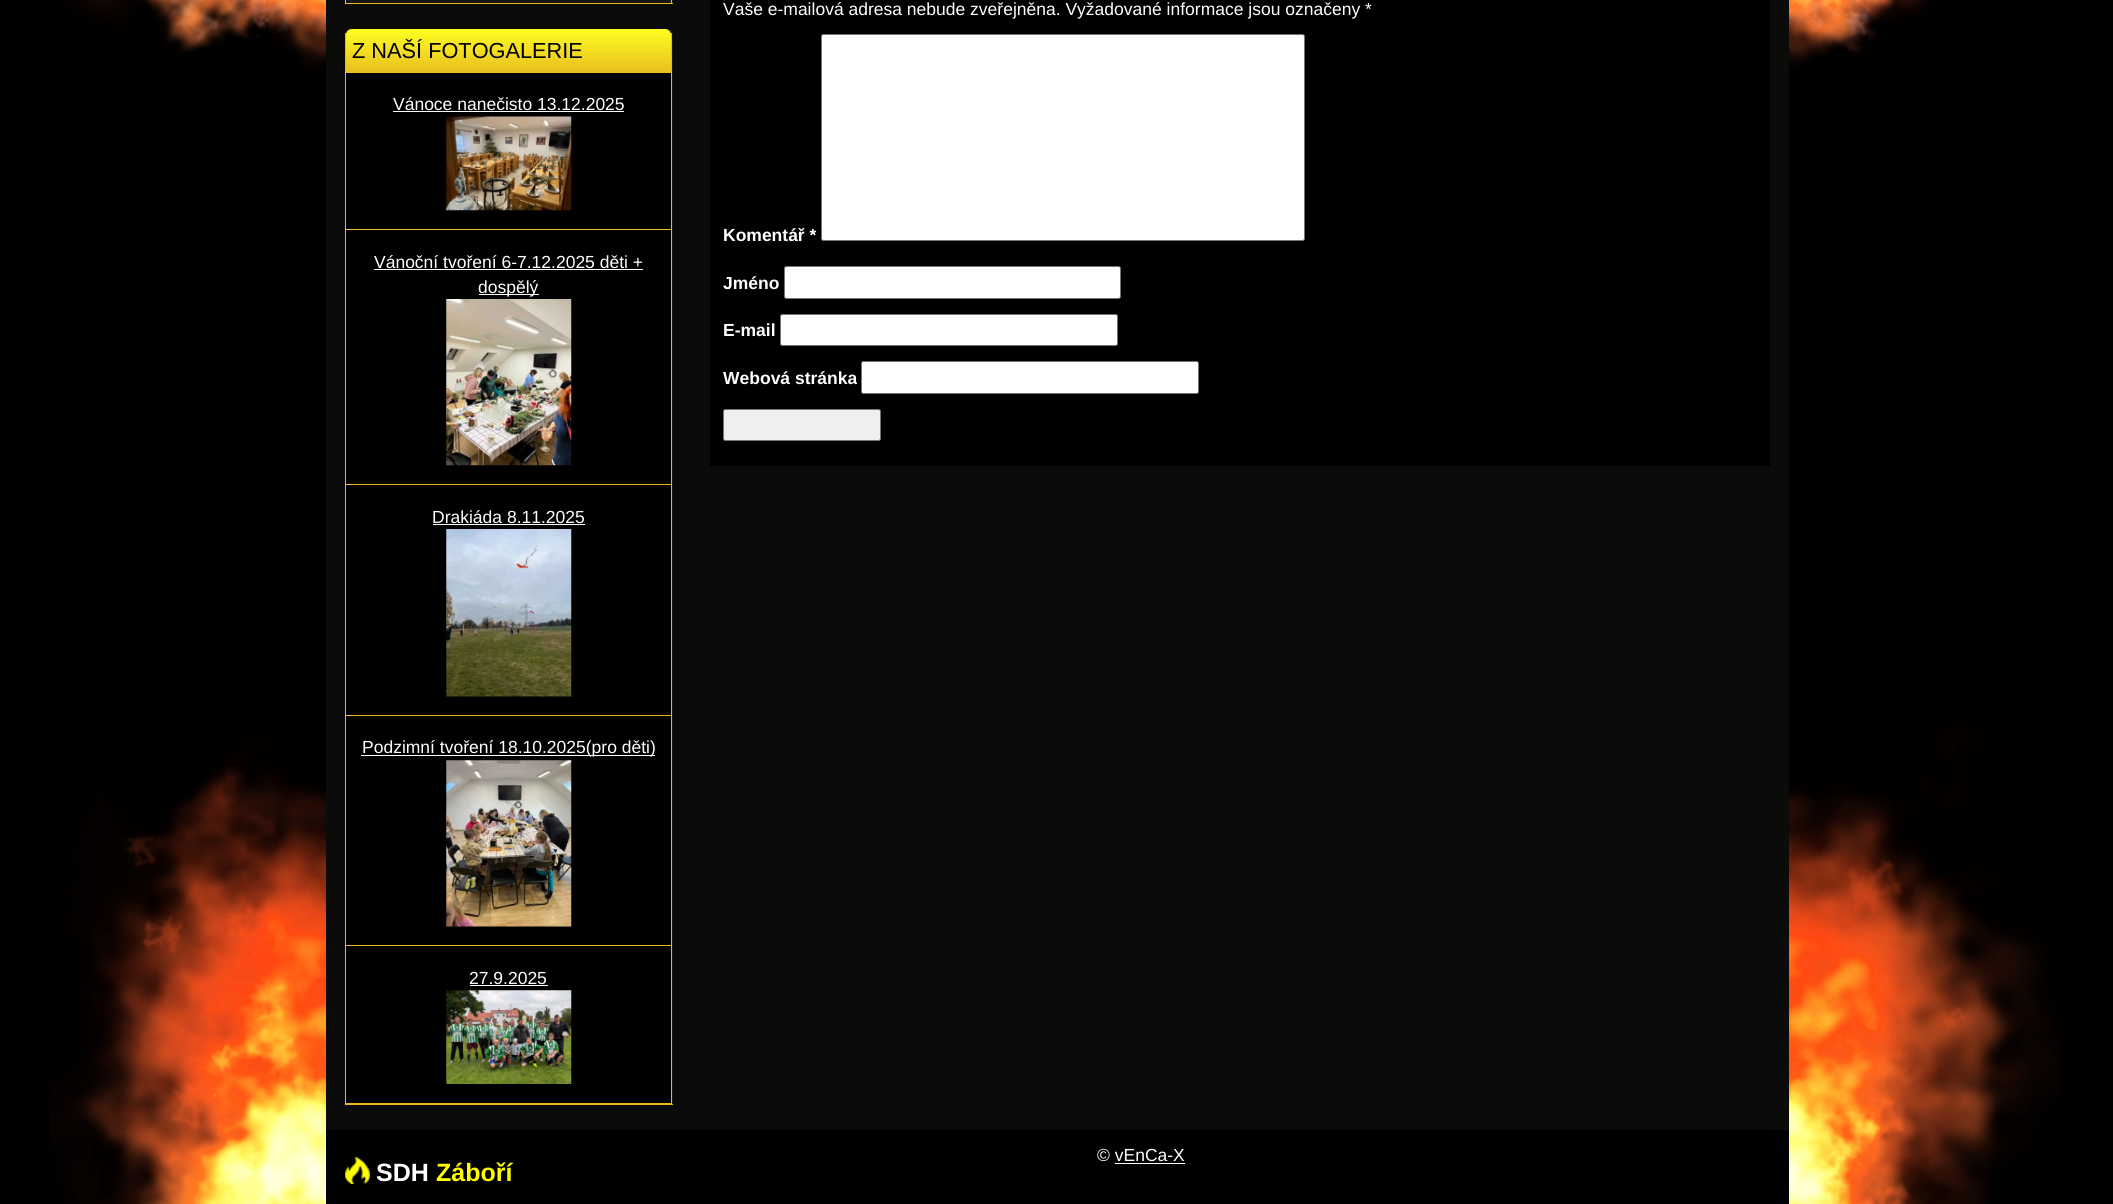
#include <cairo.h>
#include <math.h>
#include <stddef.h>

typedef struct { double x, y, w, h; unsigned color; } box_t;

static void ink(cairo_t *ctx, unsigned color) {
    cairo_set_source_rgb(ctx, (color >> 16) / 255.0, (color >> 8 & 255) / 255.0, (color & 255) / 255.0);
}

static void round_path(cairo_t *ctx, double x, double y, double w, double h, double r) {
    cairo_new_sub_path(ctx);
    cairo_arc(ctx, x + w - r, y + h - r, r, 0, M_PI / 2);
    cairo_arc(ctx, x + r, y + h - r, r, M_PI / 2, M_PI);
    cairo_arc(ctx, x + r, y + r, r, M_PI, 1.5 * M_PI);
    cairo_arc(ctx, x + w - r, y + r, r, 1.5 * M_PI, 2 * M_PI);
    cairo_close_path(ctx);
}

static void paste(cairo_t *ctx, const char *path, double x, double y, double w, double h) {
    cairo_surface_t *image = cairo_image_surface_create_from_png(path);
    cairo_save(ctx);
    cairo_set_source_surface(ctx, image, x, y);
    cairo_rectangle(ctx, x, y, w, h);
    cairo_fill(ctx);
    cairo_restore(ctx);
    cairo_surface_destroy(image);
}

int main(void) {
    cairo_surface_t *surface = cairo_image_surface_create(CAIRO_FORMAT_RGB24, 2113, 1204);
    cairo_t *ctx = cairo_create(surface);
    cairo_font_options_t *options = cairo_font_options_create();
    cairo_font_options_set_hint_metrics(options, CAIRO_HINT_METRICS_OFF);
    cairo_font_options_set_hint_style(options, CAIRO_HINT_STYLE_NONE);
    cairo_set_font_options(ctx, options);
    cairo_set_miter_limit(ctx, 4);
    cairo_pattern_t *gradient;
    ink(ctx, 0x000000);
    cairo_paint(ctx);
    paste(ctx, "media/1.png", 50, 0, 2011, 1204);
    {
        static const box_t items[] = {
            {326, 0, 1463, 1130, 0x0B0B09},
            {345, 0, 328, 3, 0x171717},
            {671, 0, 1, 4, 0xE8BA1F},
            {345, 3, 328, 1, 0xE8BA1F},
            {345, 0, 1, 4, 0xE8BA1F},
            {710, 0, 1060, 466, 0x000000},
        };
        for (size_t i = 0; i < sizeof items / sizeof *items; i++) {
            ink(ctx, items[i].color);
            cairo_rectangle(ctx, items[i].x, items[i].y, items[i].w, items[i].h);
            cairo_fill(ctx);
        }
    }
    cairo_select_font_face(ctx, "Liberation Sans", CAIRO_FONT_SLANT_NORMAL, CAIRO_FONT_WEIGHT_NORMAL);
    cairo_set_font_size(ctx, 17.5);
    ink(ctx, 0xFFFFFF);
    cairo_move_to(ctx, 723, 15);
    cairo_show_text(ctx, "Vaše e-mailová adresa nebude zveřejněna. Vyžadované informace jsou označeny *");
    cairo_select_font_face(ctx, "Liberation Sans", CAIRO_FONT_SLANT_NORMAL, CAIRO_FONT_WEIGHT_BOLD);
    cairo_move_to(ctx, 723, 241);
    cairo_show_text(ctx, "Komentář *");
    round_path(ctx, 821.5, 34.5, 483, 206, 2);
    cairo_fill_preserve(ctx);
    ink(ctx, 0x767676);
    cairo_set_line_width(ctx, 1);
    cairo_stroke(ctx);
    ink(ctx, 0xFFFFFF);
    cairo_move_to(ctx, 723, 289);
    cairo_show_text(ctx, "Jméno");
    round_path(ctx, 784.5, 266.5, 336, 32, 2);
    cairo_fill_preserve(ctx);
    ink(ctx, 0x767676);
    cairo_stroke(ctx);
    ink(ctx, 0xFFFFFF);
    cairo_move_to(ctx, 723, 336);
    cairo_show_text(ctx, "E-mail");
    round_path(ctx, 780.5, 314.5, 337, 31, 2);
    cairo_fill_preserve(ctx);
    ink(ctx, 0x767676);
    cairo_stroke(ctx);
    ink(ctx, 0xFFFFFF);
    cairo_move_to(ctx, 723, 384);
    cairo_show_text(ctx, "Webová stránka");
    round_path(ctx, 861.5, 361.5, 337, 32, 2);
    cairo_fill_preserve(ctx);
    ink(ctx, 0x767676);
    cairo_stroke(ctx);
    ink(ctx, 0xEFEFEF);
    round_path(ctx, 723.5, 409.5, 157, 31, 2);
    cairo_fill_preserve(ctx);
    ink(ctx, 0x767676);
    cairo_stroke(ctx);
    ink(ctx, 0x171717);
    cairo_new_path(ctx);
    cairo_move_to(ctx, 351, 29);
    cairo_line_to(ctx, 667, 29);
    cairo_curve_to(ctx, 670.5, 29, 673, 31.5, 673, 35);
    cairo_line_to(ctx, 673, 1105);
    cairo_line_to(ctx, 345, 1105);
    cairo_line_to(ctx, 345, 35);
    cairo_curve_to(ctx, 345, 31.5, 347.5, 29, 351, 29);
    cairo_close_path(ctx);
    cairo_fill(ctx);
    {
        static const box_t items[] = {
            {671, 33, 1, 1072, 0xE8BA1F},
            {345, 1104, 328, 1, 0xE8BA1F},
            {345, 33, 1, 1072, 0xE8BA1F},
        };
        for (size_t i = 0; i < sizeof items / sizeof *items; i++) {
            ink(ctx, items[i].color);
            cairo_rectangle(ctx, items[i].x, items[i].y, items[i].w, items[i].h);
            cairo_fill(ctx);
        }
    }
    gradient = cairo_pattern_create_linear(509, 29, 509, 73);
    cairo_pattern_add_color_stop_rgba(gradient, 0, 1, 1, 0.133, 1);
    cairo_pattern_add_color_stop_rgba(gradient, 1, 0.91, 0.741, 0.125, 1);
    cairo_set_source(ctx, gradient);
    cairo_pattern_destroy(gradient);
    cairo_new_path(ctx);
    cairo_move_to(ctx, 352, 29);
    cairo_line_to(ctx, 665, 29);
    cairo_curve_to(ctx, 668.5, 29, 671, 31.5, 671, 35);
    cairo_line_to(ctx, 671, 73);
    cairo_line_to(ctx, 346, 73);
    cairo_line_to(ctx, 346, 35);
    cairo_curve_to(ctx, 346, 31.5, 348.5, 29, 352, 29);
    cairo_close_path(ctx);
    cairo_fill(ctx);
    cairo_select_font_face(ctx, "Liberation Sans", CAIRO_FONT_SLANT_NORMAL, CAIRO_FONT_WEIGHT_NORMAL);
    cairo_set_font_size(ctx, 21.75);
    ink(ctx, 0x000000);
    cairo_move_to(ctx, 352, 58);
    cairo_show_text(ctx, "Z NAŠÍ FOTOGALERIE");
    cairo_rectangle(ctx, 346, 73, 325, 156);
    cairo_fill(ctx);
    ink(ctx, 0xE8BA1F);
    cairo_rectangle(ctx, 346, 229, 325, 1);
    cairo_fill(ctx);
    cairo_set_font_size(ctx, 17.5);
    ink(ctx, 0xFFFFFF);
    cairo_move_to(ctx, 393, 110);
    cairo_show_text(ctx, "Vánoce nanečisto 13.12.2025");
    cairo_rectangle(ctx, 393, 111, 231, 1);
    cairo_fill(ctx);
    paste(ctx, "media/2.png", 446, 116, 126, 95);
    ink(ctx, 0x000000);
    cairo_rectangle(ctx, 346, 230, 325, 254);
    cairo_fill(ctx);
    ink(ctx, 0xE8BA1F);
    cairo_rectangle(ctx, 346, 484, 325, 1);
    cairo_fill(ctx);
    ink(ctx, 0xFFFFFF);
    cairo_move_to(ctx, 374, 268);
    cairo_show_text(ctx, "Vánoční tvoření 6-7.12.2025 děti +");
    cairo_rectangle(ctx, 374, 269, 269, 1);
    cairo_fill(ctx);
    cairo_rectangle(ctx, 479, 294, 60, 1);
    cairo_fill(ctx);
    cairo_move_to(ctx, 478, 293);
    cairo_show_text(ctx, "dospělý");
    paste(ctx, "media/3.png", 446, 299, 126, 167);
    ink(ctx, 0x000000);
    cairo_rectangle(ctx, 346, 485, 325, 230);
    cairo_fill(ctx);
    ink(ctx, 0xE8BA1F);
    cairo_rectangle(ctx, 346, 715, 325, 1);
    cairo_fill(ctx);
    ink(ctx, 0xFFFFFF);
    cairo_move_to(ctx, 432, 523);
    cairo_show_text(ctx, "Drakiáda 8.11.2025");
    cairo_rectangle(ctx, 433, 524, 152, 1);
    cairo_fill(ctx);
    paste(ctx, "media/4.png", 446, 529, 126, 168);
    {
        static const box_t items[] = {
            {346, 716, 325, 229, 0x000000},
            {346, 945, 325, 1, 0xE8BA1F},
            {361, 755, 294, 1, 0xFFFFFF},
        };
        for (size_t i = 0; i < sizeof items / sizeof *items; i++) {
            ink(ctx, items[i].color);
            cairo_rectangle(ctx, items[i].x, items[i].y, items[i].w, items[i].h);
            cairo_fill(ctx);
        }
    }
    cairo_move_to(ctx, 362, 753);
    cairo_show_text(ctx, "Podzimní tvoření 18.10.2025(pro děti)");
    paste(ctx, "media/5.png", 446, 760, 126, 167);
    ink(ctx, 0x000000);
    cairo_rectangle(ctx, 346, 946, 325, 157);
    cairo_fill(ctx);
    ink(ctx, 0xE8BA1F);
    cairo_rectangle(ctx, 346, 1103, 325, 1);
    cairo_fill(ctx);
    ink(ctx, 0xFFFFFF);
    cairo_move_to(ctx, 469, 984);
    cairo_show_text(ctx, "27.9.2025");
    cairo_rectangle(ctx, 470, 985, 78, 1);
    cairo_fill(ctx);
    paste(ctx, "media/6.png", 446, 990, 126, 94);
    ink(ctx, 0x000000);
    cairo_rectangle(ctx, 326, 1130, 1463, 74);
    cairo_fill(ctx);
    ink(ctx, 0xFFFFFF);
    cairo_move_to(ctx, 1097, 1161);
    cairo_show_text(ctx, "© vEnCa-X");
    cairo_rectangle(ctx, 1115, 1163, 70, 1);
    cairo_fill(ctx);
    paste(ctx, "media/7.png", 345, 1156, 25, 28);
    cairo_select_font_face(ctx, "Liberation Sans", CAIRO_FONT_SLANT_NORMAL, CAIRO_FONT_WEIGHT_BOLD);
    cairo_set_font_size(ctx, 25);
    cairo_move_to(ctx, 376, 1181);
    cairo_show_text(ctx, "SDH");
    ink(ctx, 0xFFFF00);
    cairo_move_to(ctx, 436, 1181);
    cairo_show_text(ctx, "Záboří");
    cairo_surface_write_to_png(surface, "image.png");
    cairo_font_options_destroy(options);
    cairo_destroy(ctx);
    cairo_surface_destroy(surface);
    return 0;
}
